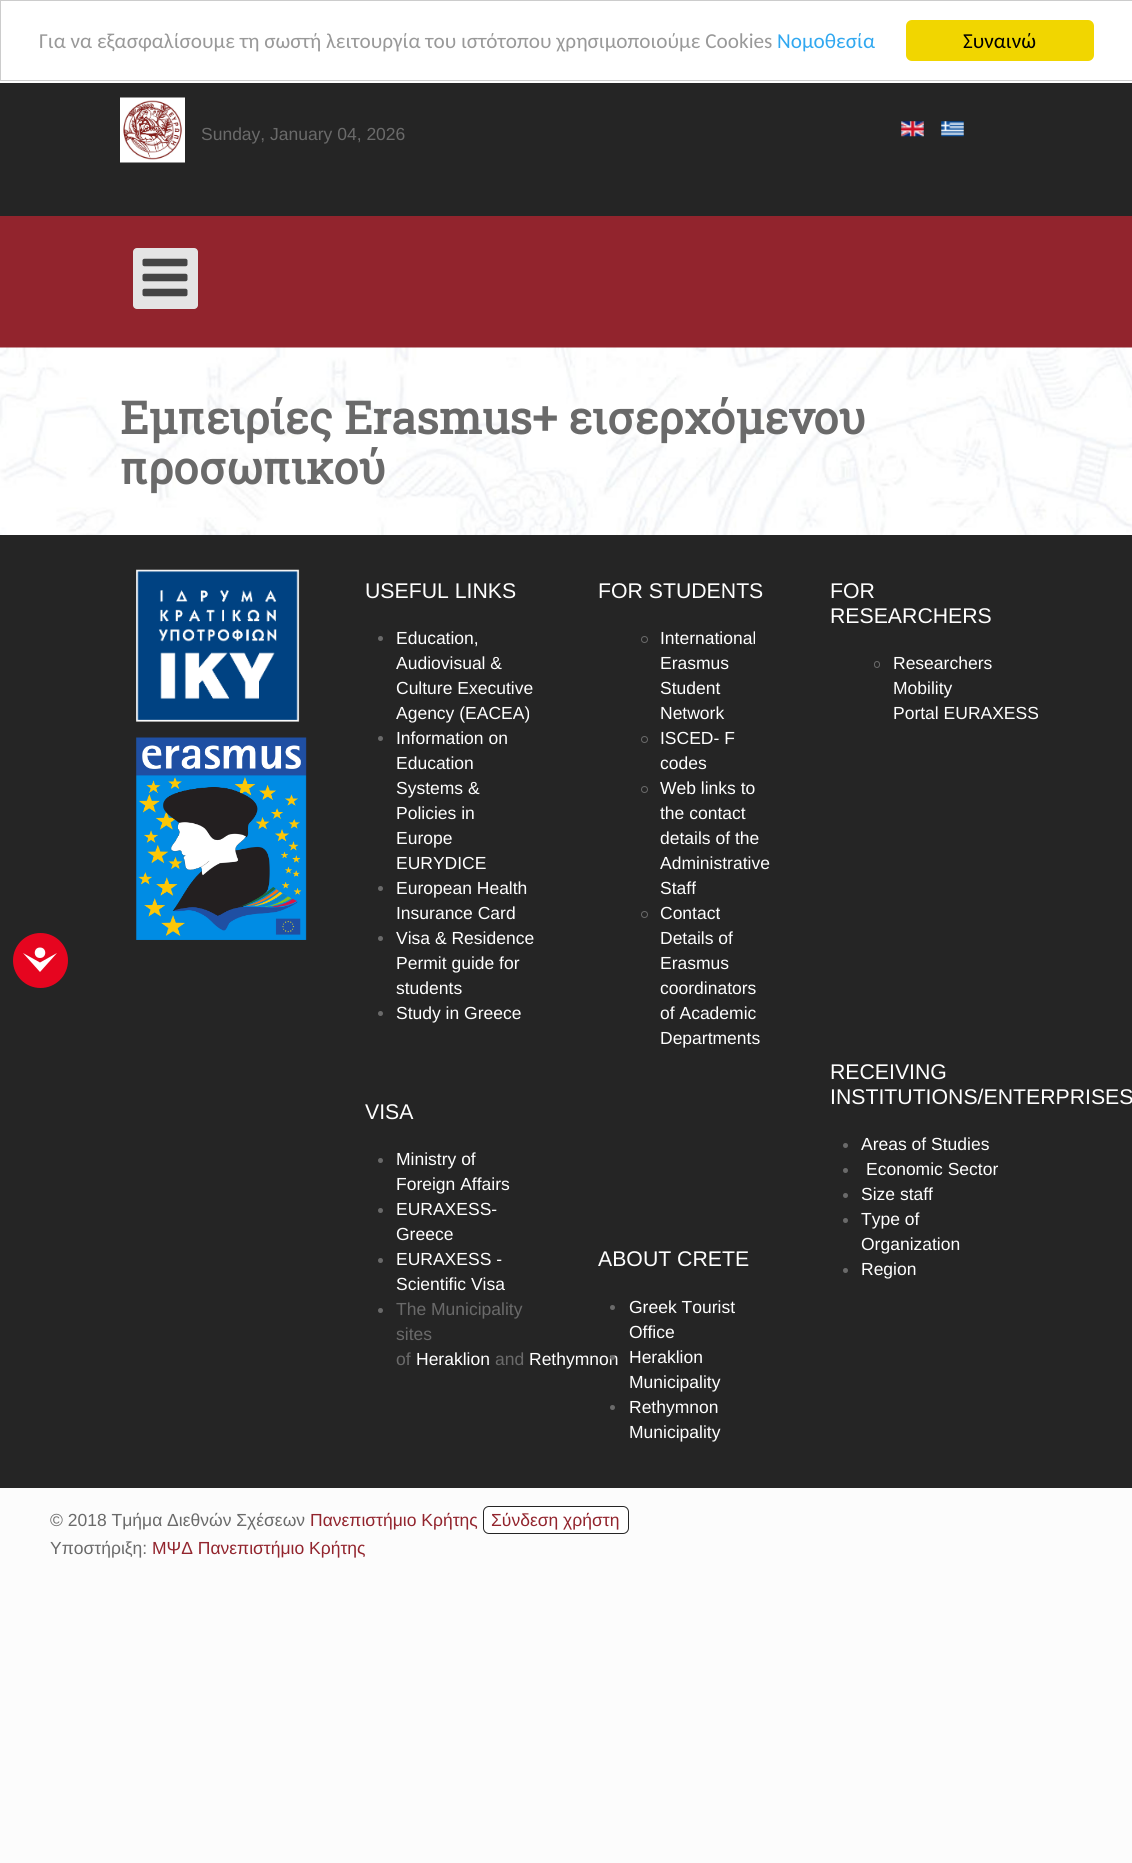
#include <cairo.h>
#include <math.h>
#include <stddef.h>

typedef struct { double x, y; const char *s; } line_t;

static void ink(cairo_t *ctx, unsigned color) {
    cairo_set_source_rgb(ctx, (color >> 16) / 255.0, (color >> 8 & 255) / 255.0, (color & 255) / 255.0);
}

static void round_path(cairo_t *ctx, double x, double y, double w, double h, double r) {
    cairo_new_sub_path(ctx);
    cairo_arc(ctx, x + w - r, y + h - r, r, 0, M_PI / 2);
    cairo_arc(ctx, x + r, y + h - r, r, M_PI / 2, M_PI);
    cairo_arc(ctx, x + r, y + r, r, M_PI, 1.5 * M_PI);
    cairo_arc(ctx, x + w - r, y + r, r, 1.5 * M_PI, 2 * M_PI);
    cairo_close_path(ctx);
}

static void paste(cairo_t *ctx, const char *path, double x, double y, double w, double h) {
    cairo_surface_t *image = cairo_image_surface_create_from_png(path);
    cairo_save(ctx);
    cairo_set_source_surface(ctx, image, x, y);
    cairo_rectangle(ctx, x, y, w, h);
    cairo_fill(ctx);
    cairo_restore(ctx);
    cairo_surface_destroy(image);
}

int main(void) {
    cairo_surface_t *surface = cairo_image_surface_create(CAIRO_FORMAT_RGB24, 1132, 1863);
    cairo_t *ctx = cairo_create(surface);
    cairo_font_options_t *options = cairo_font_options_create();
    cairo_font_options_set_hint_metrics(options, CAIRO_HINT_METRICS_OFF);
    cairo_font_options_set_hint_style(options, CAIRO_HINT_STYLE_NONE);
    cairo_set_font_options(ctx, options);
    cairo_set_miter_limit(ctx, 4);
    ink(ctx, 0xFCFCFC);
    cairo_paint(ctx);
    ink(ctx, 0xFFFFFF);
    cairo_rectangle(ctx, 0.5, 0.5, 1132, 80);
    cairo_fill_preserve(ctx);
    ink(ctx, 0xCCCCCC);
    cairo_set_line_width(ctx, 1);
    cairo_stroke(ctx);
    cairo_select_font_face(ctx, "Carlito", CAIRO_FONT_SLANT_NORMAL, CAIRO_FONT_WEIGHT_NORMAL);
    cairo_set_font_size(ctx, 21.25);
    ink(ctx, 0x999999);
    cairo_move_to(ctx, 39, 48);
    cairo_show_text(ctx, "Για να εξασφαλίσουμε τη σωστή λειτουργία του ιστότοπου χρησιμοποιούμε Cookies");
    ink(ctx, 0x31A8F0);
    cairo_move_to(ctx, 777, 48);
    cairo_show_text(ctx, "Νομοθεσία");
    ink(ctx, 0xF1D600);
    round_path(ctx, 906, 20, 188, 41, 6);
    cairo_fill(ctx);
    ink(ctx, 0x000000);
    cairo_move_to(ctx, 963, 48);
    cairo_show_text(ctx, "Συναινώ");
    ink(ctx, 0x252525);
    cairo_rectangle(ctx, 0, 535, 1132, 953);
    cairo_fill(ctx);
    ink(ctx, 0xE6051F);
    cairo_arc(ctx, 40.5, 960.5, 27.5, 0, 2 * M_PI);
    cairo_fill(ctx);
    ink(ctx, 0xFFFFFF);
    cairo_new_path(ctx);
    cairo_move_to(ctx, 40, 958);
    cairo_curve_to(ctx, 47, 958, 47, 947.5, 40, 947.5);
    cairo_curve_to(ctx, 33, 947.5, 33, 958, 40, 958);
    cairo_close_path(ctx);
    cairo_move_to(ctx, 40, 962.5);
    cairo_line_to(ctx, 23, 953);
    cairo_line_to(ctx, 40, 972);
    cairo_line_to(ctx, 57, 953);
    cairo_close_path(ctx);
    cairo_fill(ctx);
    ink(ctx, 0x252525);
    cairo_rectangle(ctx, 0, 83, 1132, 133);
    cairo_fill(ctx);
    paste(ctx, "media/1.png", 120, 97, 65, 66);
    cairo_select_font_face(ctx, "Liberation Sans", CAIRO_FONT_SLANT_NORMAL, CAIRO_FONT_WEIGHT_NORMAL);
    cairo_set_font_size(ctx, 17.5);
    ink(ctx, 0x6A6A6A);
    cairo_move_to(ctx, 201, 140);
    cairo_show_text(ctx, "Sunday, January 04, 2026");
    paste(ctx, "media/2.png", 901, 121, 23, 16);
    paste(ctx, "media/3.png", 941, 121, 23, 16);
    ink(ctx, 0x92242D);
    cairo_rectangle(ctx, 0, 216, 1132, 132);
    cairo_fill(ctx);
    ink(ctx, 0xE4E4E4);
    round_path(ctx, 133, 248, 65, 61, 4);
    cairo_fill(ctx);
    paste(ctx, "media/4.png", 142, 258, 46, 39);
    paste(ctx, "media/5.png", 0, 347, 1132, 188);
    cairo_select_font_face(ctx, "Roboto Slab", CAIRO_FONT_SLANT_NORMAL, CAIRO_FONT_WEIGHT_BOLD);
    cairo_set_font_size(ctx, 45);
    ink(ctx, 0x6A6A6A);
    cairo_move_to(ctx, 120, 434);
    cairo_show_text(ctx, "Εμπειρίες Erasmus+ εισερχόμενου");
    cairo_move_to(ctx, 120, 484);
    cairo_show_text(ctx, "προσωπικού");
    paste(ctx, "media/6.png", 136, 569, 164, 153);
    paste(ctx, "media/7.png", 136, 737, 171, 203);
    cairo_select_font_face(ctx, "Liberation Sans", CAIRO_FONT_SLANT_NORMAL, CAIRO_FONT_WEIGHT_NORMAL);
    cairo_set_font_size(ctx, 21.25);
    ink(ctx, 0xFFFFFF);
    cairo_move_to(ctx, 365, 598);
    cairo_show_text(ctx, "USEFUL LINKS");
    ink(ctx, 0x6A6A6A);
    cairo_new_path(ctx);
    cairo_arc(ctx, 380.5, 638.5, 2.5, 0, 2 * M_PI);
    cairo_fill(ctx);
    cairo_set_font_size(ctx, 17.5);
    ink(ctx, 0xFFFFFF);
    {
        static const line_t items[] = {
            {396, 644, "Education,"},
            {396, 669, "Audiovisual &"},
            {396, 694, "Culture Executive"},
            {396, 719, "Agency (EACEA)"},
        };
        for (size_t i = 0; i < sizeof items / sizeof *items; i++) {
            cairo_move_to(ctx, items[i].x, items[i].y);
            cairo_show_text(ctx, items[i].s);
        }
    }
    ink(ctx, 0x6A6A6A);
    cairo_new_path(ctx);
    cairo_arc(ctx, 380.5, 738.5, 2.5, 0, 2 * M_PI);
    cairo_fill(ctx);
    ink(ctx, 0xFFFFFF);
    {
        static const line_t items[] = {
            {396, 744, "Information on"},
            {396, 769, "Education"},
            {396, 794, "Systems &"},
            {396, 819, "Policies in"},
            {396, 844, "Europe"},
            {396, 869, "EURYDICE"},
        };
        for (size_t i = 0; i < sizeof items / sizeof *items; i++) {
            cairo_move_to(ctx, items[i].x, items[i].y);
            cairo_show_text(ctx, items[i].s);
        }
    }
    ink(ctx, 0x6A6A6A);
    cairo_new_path(ctx);
    cairo_arc(ctx, 380.5, 888.5, 2.5, 0, 2 * M_PI);
    cairo_fill(ctx);
    ink(ctx, 0xFFFFFF);
    cairo_move_to(ctx, 396, 894);
    cairo_show_text(ctx, "European Health");
    cairo_move_to(ctx, 396, 919);
    cairo_show_text(ctx, "Insurance Card");
    ink(ctx, 0x6A6A6A);
    cairo_new_path(ctx);
    cairo_arc(ctx, 380.5, 938.5, 2.5, 0, 2 * M_PI);
    cairo_fill(ctx);
    ink(ctx, 0xFFFFFF);
    {
        static const line_t items[] = {
            {396, 944, "Visa & Residence"},
            {396, 969, "Permit guide for"},
            {396, 994, "students"},
        };
        for (size_t i = 0; i < sizeof items / sizeof *items; i++) {
            cairo_move_to(ctx, items[i].x, items[i].y);
            cairo_show_text(ctx, items[i].s);
        }
    }
    ink(ctx, 0x6A6A6A);
    cairo_new_path(ctx);
    cairo_arc(ctx, 380.5, 1013.5, 2.5, 0, 2 * M_PI);
    cairo_fill(ctx);
    ink(ctx, 0xFFFFFF);
    cairo_move_to(ctx, 396, 1019);
    cairo_show_text(ctx, "Study in Greece");
    cairo_set_font_size(ctx, 21.25);
    cairo_move_to(ctx, 365, 1119);
    cairo_show_text(ctx, "VISA");
    ink(ctx, 0x6A6A6A);
    cairo_new_path(ctx);
    cairo_arc(ctx, 380.5, 1160.5, 2.5, 0, 2 * M_PI);
    cairo_fill(ctx);
    cairo_set_font_size(ctx, 17.5);
    ink(ctx, 0xFFFFFF);
    cairo_move_to(ctx, 396, 1165);
    cairo_show_text(ctx, "Ministry of");
    cairo_move_to(ctx, 396, 1190);
    cairo_show_text(ctx, "Foreign Affairs");
    ink(ctx, 0x6A6A6A);
    cairo_new_path(ctx);
    cairo_arc(ctx, 380.5, 1210.5, 2.5, 0, 2 * M_PI);
    cairo_fill(ctx);
    ink(ctx, 0xFFFFFF);
    cairo_move_to(ctx, 396, 1215);
    cairo_show_text(ctx, "EURAXESS-");
    cairo_move_to(ctx, 396, 1240);
    cairo_show_text(ctx, "Greece");
    ink(ctx, 0x6A6A6A);
    cairo_new_path(ctx);
    cairo_arc(ctx, 380.5, 1260.5, 2.5, 0, 2 * M_PI);
    cairo_fill(ctx);
    ink(ctx, 0xFFFFFF);
    cairo_move_to(ctx, 396, 1265);
    cairo_show_text(ctx, "EURAXESS -");
    cairo_move_to(ctx, 396, 1290);
    cairo_show_text(ctx, "Scientific Visa");
    ink(ctx, 0x6A6A6A);
    cairo_new_path(ctx);
    cairo_arc(ctx, 380.5, 1310.5, 2.5, 0, 2 * M_PI);
    cairo_fill(ctx);
    {
        static const line_t items[] = {
            {396, 1315, "The Municipality"},
            {396, 1340, "sites"},
            {396, 1365, "of"},
        };
        for (size_t i = 0; i < sizeof items / sizeof *items; i++) {
            cairo_move_to(ctx, items[i].x, items[i].y);
            cairo_show_text(ctx, items[i].s);
        }
    }
    ink(ctx, 0xFFFFFF);
    cairo_move_to(ctx, 416, 1365);
    cairo_show_text(ctx, "Heraklion");
    ink(ctx, 0x6A6A6A);
    cairo_move_to(ctx, 495, 1365);
    cairo_show_text(ctx, "and");
    ink(ctx, 0xFFFFFF);
    cairo_move_to(ctx, 529, 1365);
    cairo_show_text(ctx, "Rethymnon");
    cairo_set_font_size(ctx, 21.25);
    cairo_move_to(ctx, 598, 598);
    cairo_show_text(ctx, "FOR STUDENTS");
    cairo_new_path(ctx);
    cairo_arc(ctx, 644.5, 639.5, 3, 0, 2 * M_PI);
    ink(ctx, 0x6A6A6A);
    cairo_stroke(ctx);
    cairo_set_font_size(ctx, 17.5);
    ink(ctx, 0xFFFFFF);
    {
        static const line_t items[] = {
            {660, 644, "International"},
            {660, 669, "Erasmus"},
            {660, 694, "Student"},
            {660, 719, "Network"},
        };
        for (size_t i = 0; i < sizeof items / sizeof *items; i++) {
            cairo_move_to(ctx, items[i].x, items[i].y);
            cairo_show_text(ctx, items[i].s);
        }
    }
    cairo_new_path(ctx);
    cairo_arc(ctx, 644.5, 739.5, 3, 0, 2 * M_PI);
    ink(ctx, 0x6A6A6A);
    cairo_stroke(ctx);
    ink(ctx, 0xFFFFFF);
    cairo_move_to(ctx, 660, 744);
    cairo_show_text(ctx, "ISCED- F");
    cairo_move_to(ctx, 660, 769);
    cairo_show_text(ctx, "codes");
    cairo_new_path(ctx);
    cairo_arc(ctx, 644.5, 789.5, 3, 0, 2 * M_PI);
    ink(ctx, 0x6A6A6A);
    cairo_stroke(ctx);
    ink(ctx, 0xFFFFFF);
    {
        static const line_t items[] = {
            {660, 794, "Web links to"},
            {660, 819, "the contact"},
            {660, 844, "details of the"},
            {660, 869, "Administrative"},
            {660, 894, "Staff"},
        };
        for (size_t i = 0; i < sizeof items / sizeof *items; i++) {
            cairo_move_to(ctx, items[i].x, items[i].y);
            cairo_show_text(ctx, items[i].s);
        }
    }
    cairo_new_path(ctx);
    cairo_arc(ctx, 644.5, 914.5, 3, 0, 2 * M_PI);
    ink(ctx, 0x6A6A6A);
    cairo_stroke(ctx);
    ink(ctx, 0xFFFFFF);
    {
        static const line_t items[] = {
            {660, 919, "Contact"},
            {660, 944, "Details of"},
            {660, 969, "Erasmus"},
            {660, 994, "coordinators"},
            {660, 1019, "of Academic"},
            {660, 1044, "Departments"},
        };
        for (size_t i = 0; i < sizeof items / sizeof *items; i++) {
            cairo_move_to(ctx, items[i].x, items[i].y);
            cairo_show_text(ctx, items[i].s);
        }
    }
    cairo_set_font_size(ctx, 21.25);
    cairo_move_to(ctx, 598, 1266);
    cairo_show_text(ctx, "ABOUT CRETE");
    ink(ctx, 0x6A6A6A);
    cairo_new_path(ctx);
    cairo_arc(ctx, 612.5, 1307.5, 2.5, 0, 2 * M_PI);
    cairo_fill(ctx);
    cairo_set_font_size(ctx, 17.5);
    ink(ctx, 0xFFFFFF);
    cairo_move_to(ctx, 629, 1313);
    cairo_show_text(ctx, "Greek Tourist");
    cairo_move_to(ctx, 629, 1338);
    cairo_show_text(ctx, "Office");
    ink(ctx, 0x6A6A6A);
    cairo_new_path(ctx);
    cairo_arc(ctx, 612.5, 1357.5, 2.5, 0, 2 * M_PI);
    cairo_fill(ctx);
    ink(ctx, 0xFFFFFF);
    cairo_move_to(ctx, 629, 1363);
    cairo_show_text(ctx, "Heraklion");
    cairo_move_to(ctx, 629, 1388);
    cairo_show_text(ctx, "Municipality");
    ink(ctx, 0x6A6A6A);
    cairo_new_path(ctx);
    cairo_arc(ctx, 612.5, 1407.5, 2.5, 0, 2 * M_PI);
    cairo_fill(ctx);
    ink(ctx, 0xFFFFFF);
    cairo_move_to(ctx, 629, 1413);
    cairo_show_text(ctx, "Rethymnon");
    cairo_move_to(ctx, 629, 1438);
    cairo_show_text(ctx, "Municipality");
    cairo_set_font_size(ctx, 21.25);
    cairo_move_to(ctx, 830, 598);
    cairo_show_text(ctx, "FOR");
    cairo_move_to(ctx, 830, 623);
    cairo_show_text(ctx, "RESEARCHERS");
    round_path(ctx, 874.5, 661.5, 5, 6, 2.5);
    ink(ctx, 0x6A6A6A);
    cairo_stroke(ctx);
    cairo_set_font_size(ctx, 17.5);
    ink(ctx, 0xFFFFFF);
    {
        static const line_t items[] = {
            {893, 669, "Researchers"},
            {893, 694, "Mobility"},
            {893, 719, "Portal EURAXESS"},
        };
        for (size_t i = 0; i < sizeof items / sizeof *items; i++) {
            cairo_move_to(ctx, items[i].x, items[i].y);
            cairo_show_text(ctx, items[i].s);
        }
    }
    cairo_set_font_size(ctx, 21.25);
    cairo_move_to(ctx, 830, 1079);
    cairo_show_text(ctx, "RECEIVING");
    cairo_move_to(ctx, 830, 1104);
    cairo_show_text(ctx, "INSTITUTIONS/ENTERPRISES");
    ink(ctx, 0x6A6A6A);
    cairo_new_path(ctx);
    cairo_arc(ctx, 845.5, 1145.5, 2.5, 0, 2 * M_PI);
    cairo_fill(ctx);
    cairo_set_font_size(ctx, 17.5);
    ink(ctx, 0xFFFFFF);
    cairo_move_to(ctx, 861, 1150);
    cairo_show_text(ctx, "Areas of Studies");
    ink(ctx, 0x6A6A6A);
    cairo_new_path(ctx);
    cairo_arc(ctx, 845.5, 1170.5, 2.5, 0, 2 * M_PI);
    cairo_fill(ctx);
    ink(ctx, 0xFFFFFF);
    cairo_move_to(ctx, 866, 1175);
    cairo_show_text(ctx, "Economic Sector");
    ink(ctx, 0x6A6A6A);
    cairo_new_path(ctx);
    cairo_arc(ctx, 845.5, 1195.5, 2.5, 0, 2 * M_PI);
    cairo_fill(ctx);
    ink(ctx, 0xFFFFFF);
    cairo_move_to(ctx, 861, 1200);
    cairo_show_text(ctx, "Size staff");
    ink(ctx, 0x6A6A6A);
    cairo_new_path(ctx);
    cairo_arc(ctx, 845.5, 1220.5, 2.5, 0, 2 * M_PI);
    cairo_fill(ctx);
    ink(ctx, 0xFFFFFF);
    cairo_move_to(ctx, 861, 1225);
    cairo_show_text(ctx, "Type of");
    cairo_move_to(ctx, 861, 1250);
    cairo_show_text(ctx, "Organization");
    ink(ctx, 0x6A6A6A);
    cairo_new_path(ctx);
    cairo_arc(ctx, 845.5, 1270.5, 2.5, 0, 2 * M_PI);
    cairo_fill(ctx);
    ink(ctx, 0xFFFFFF);
    cairo_move_to(ctx, 861, 1275);
    cairo_show_text(ctx, "Region");
    ink(ctx, 0x6A6A6A);
    cairo_move_to(ctx, 50, 1526);
    cairo_show_text(ctx, "© 2018 Τμήμα Διεθνών Σχέσεων");
    ink(ctx, 0x92242D);
    cairo_move_to(ctx, 310, 1526);
    cairo_show_text(ctx, "Πανεπιστήμιο Κρήτης");
    ink(ctx, 0xFFFFFF);
    round_path(ctx, 483.5, 1506.5, 145, 27, 5.5);
    cairo_fill_preserve(ctx);
    ink(ctx, 0x252525);
    cairo_stroke(ctx);
    ink(ctx, 0x92242D);
    cairo_move_to(ctx, 491, 1526);
    cairo_show_text(ctx, "Σύνδεση χρήστη");
    ink(ctx, 0x6A6A6A);
    cairo_move_to(ctx, 50, 1554);
    cairo_show_text(ctx, "Υποστήριξη:");
    ink(ctx, 0x92242D);
    cairo_move_to(ctx, 152, 1554);
    cairo_show_text(ctx, "ΜΨΔ Πανεπιστήμιο Κρήτης");
    cairo_surface_write_to_png(surface, "image.png");
    cairo_font_options_destroy(options);
    cairo_destroy(ctx);
    cairo_surface_destroy(surface);
    return 0;
}
